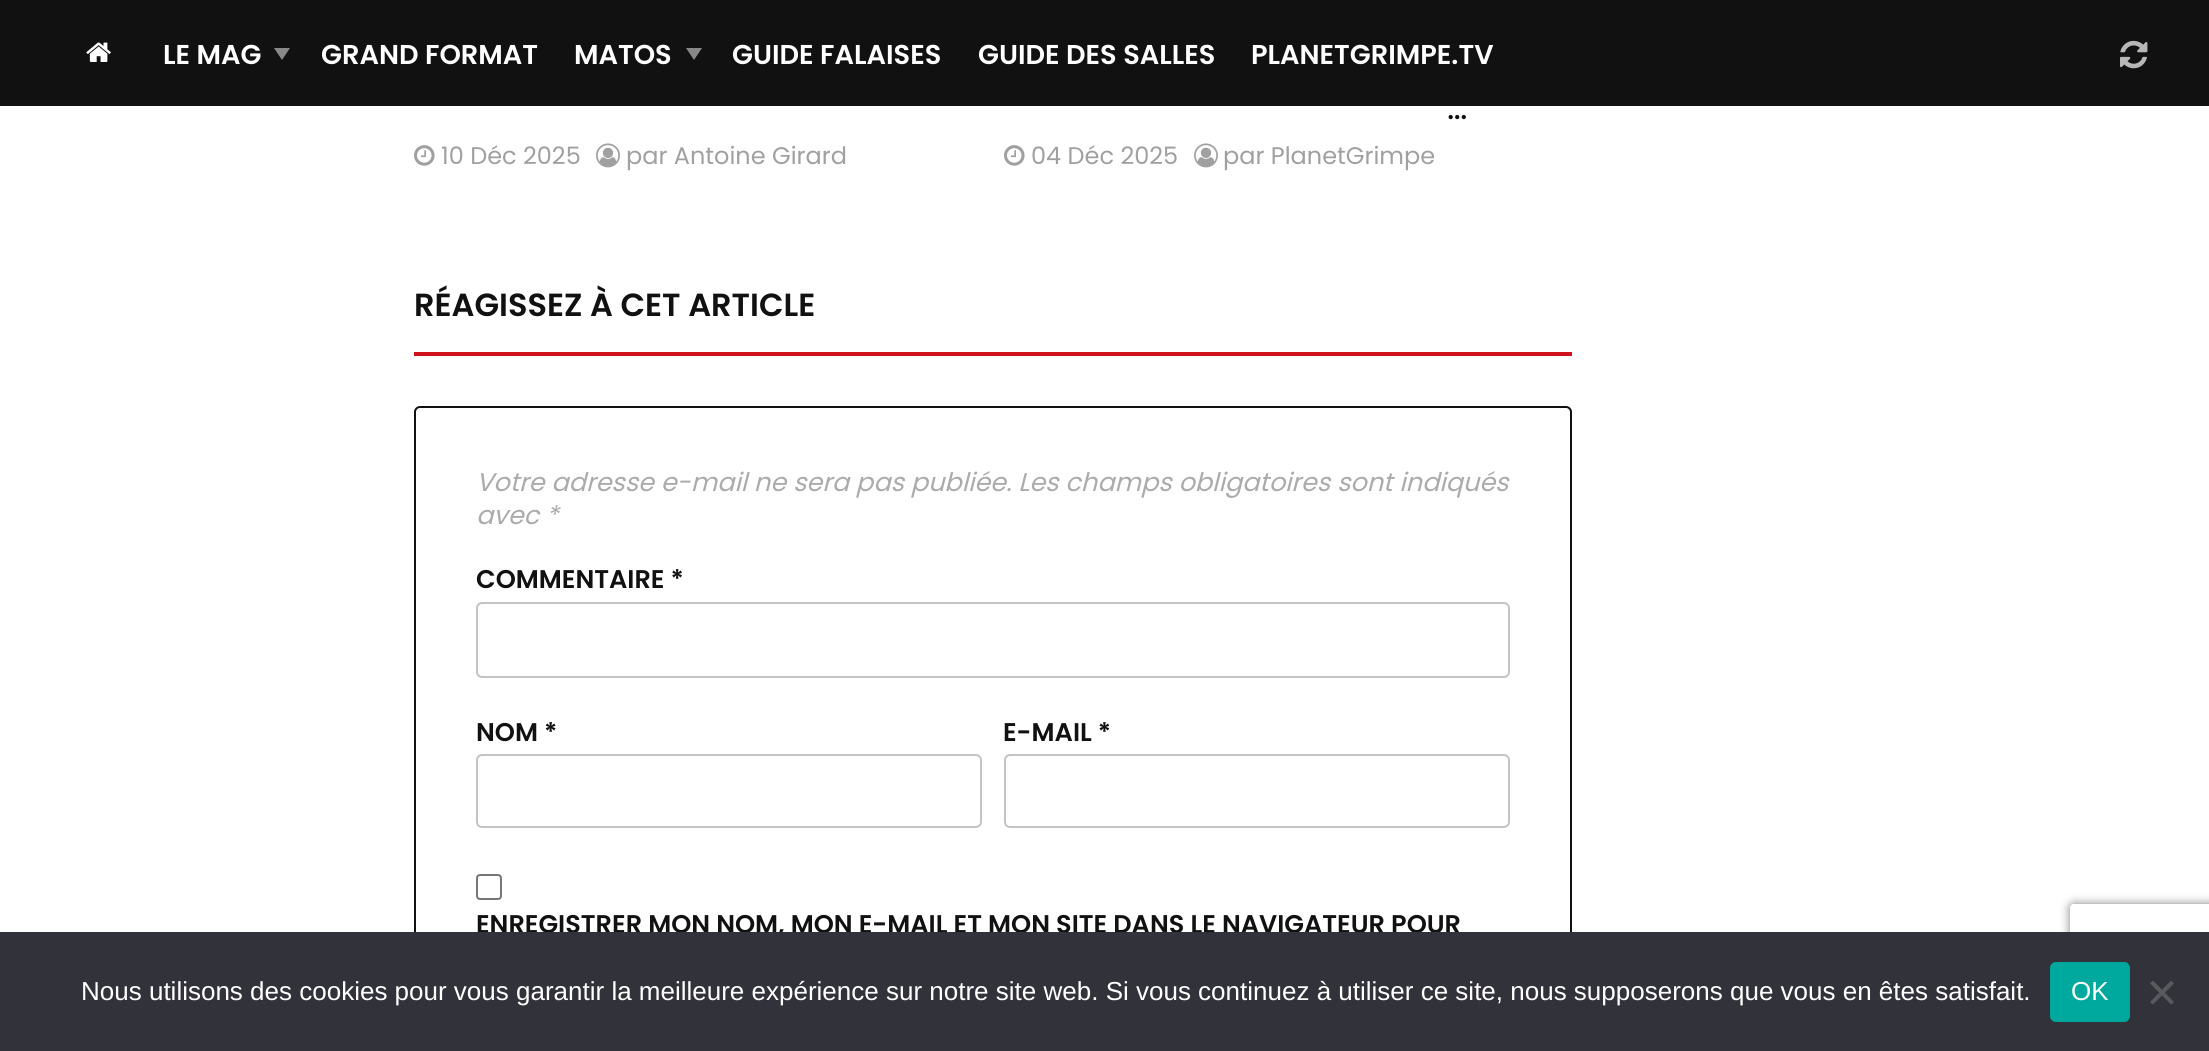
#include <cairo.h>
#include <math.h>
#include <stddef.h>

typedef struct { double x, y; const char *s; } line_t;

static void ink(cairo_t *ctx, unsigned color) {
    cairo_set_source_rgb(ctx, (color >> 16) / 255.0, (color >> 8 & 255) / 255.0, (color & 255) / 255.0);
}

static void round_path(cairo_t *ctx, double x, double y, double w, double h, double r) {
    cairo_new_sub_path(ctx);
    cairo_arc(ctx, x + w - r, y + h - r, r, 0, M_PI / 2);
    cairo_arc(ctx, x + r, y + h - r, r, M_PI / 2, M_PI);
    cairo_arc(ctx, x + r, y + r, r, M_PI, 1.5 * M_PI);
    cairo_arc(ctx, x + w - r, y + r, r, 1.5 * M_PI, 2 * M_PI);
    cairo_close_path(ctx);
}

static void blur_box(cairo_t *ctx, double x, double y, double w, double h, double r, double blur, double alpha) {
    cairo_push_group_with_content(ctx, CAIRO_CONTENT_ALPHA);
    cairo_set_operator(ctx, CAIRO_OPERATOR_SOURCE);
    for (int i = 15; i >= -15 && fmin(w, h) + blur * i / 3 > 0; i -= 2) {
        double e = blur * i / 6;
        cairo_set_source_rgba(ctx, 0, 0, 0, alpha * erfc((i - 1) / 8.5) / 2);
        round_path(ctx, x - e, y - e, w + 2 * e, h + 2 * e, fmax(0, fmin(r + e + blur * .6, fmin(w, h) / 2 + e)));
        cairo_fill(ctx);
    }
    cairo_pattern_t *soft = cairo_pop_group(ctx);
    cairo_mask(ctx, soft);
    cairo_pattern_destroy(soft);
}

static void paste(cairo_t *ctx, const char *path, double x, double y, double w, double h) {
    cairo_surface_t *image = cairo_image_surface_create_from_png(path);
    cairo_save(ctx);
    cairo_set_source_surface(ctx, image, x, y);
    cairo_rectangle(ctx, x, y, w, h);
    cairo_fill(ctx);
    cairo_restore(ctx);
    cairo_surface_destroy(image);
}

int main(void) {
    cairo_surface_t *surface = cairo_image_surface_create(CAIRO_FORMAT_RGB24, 2209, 1051);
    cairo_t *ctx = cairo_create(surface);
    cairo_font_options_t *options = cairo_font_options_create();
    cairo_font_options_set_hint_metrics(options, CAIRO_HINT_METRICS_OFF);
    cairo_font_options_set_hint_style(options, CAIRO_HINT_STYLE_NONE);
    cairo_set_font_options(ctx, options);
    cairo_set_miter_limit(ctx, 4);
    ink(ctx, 0xFFFFFF);
    cairo_paint(ctx);
    ink(ctx, 0x111111);
    cairo_rectangle(ctx, 0, 0, 2209, 106);
    cairo_fill(ctx);
    paste(ctx, "media/1.png", 86, 42, 25, 20);
    cairo_select_font_face(ctx, "Poppins SemiBold", CAIRO_FONT_SLANT_NORMAL, CAIRO_FONT_WEIGHT_NORMAL);
    cairo_set_font_size(ctx, 27.25);
    ink(ctx, 0xFFFFFF);
    cairo_move_to(ctx, 163, 64);
    cairo_show_text(ctx, "LE MAG");
    ink(ctx, 0x888888);
    cairo_new_path(ctx);
    cairo_move_to(ctx, 274, 48);
    cairo_line_to(ctx, 290, 48);
    cairo_line_to(ctx, 282, 60);
    cairo_close_path(ctx);
    cairo_fill(ctx);
    ink(ctx, 0xFFFFFF);
    cairo_move_to(ctx, 321, 64);
    cairo_show_text(ctx, "GRAND FORMAT");
    cairo_move_to(ctx, 574, 64);
    cairo_show_text(ctx, "MATOS");
    ink(ctx, 0x888888);
    cairo_new_path(ctx);
    cairo_move_to(ctx, 686, 48);
    cairo_line_to(ctx, 702, 48);
    cairo_line_to(ctx, 694, 60);
    cairo_close_path(ctx);
    cairo_fill(ctx);
    ink(ctx, 0xFFFFFF);
    {
        static const line_t items[] = {
            {732, 64, "GUIDE FALAISES"},
            {978, 64, "GUIDE DES SALLES"},
            {1251, 64, "PLANETGRIMPE.TV"},
        };
        for (size_t i = 0; i < sizeof items / sizeof *items; i++) {
            cairo_move_to(ctx, items[i].x, items[i].y);
            cairo_show_text(ctx, items[i].s);
        }
    }
    paste(ctx, "media/2.png", 2120, 40, 28, 29);
    paste(ctx, "media/3.png", 414, 145, 21, 21);
    cairo_select_font_face(ctx, "Poppins", CAIRO_FONT_SLANT_NORMAL, CAIRO_FONT_WEIGHT_NORMAL);
    cairo_set_font_size(ctx, 24);
    ink(ctx, 0xA0A0A0);
    cairo_move_to(ctx, 441, 164);
    cairo_show_text(ctx, "10 Déc 2025");
    paste(ctx, "media/4.png", 596, 143, 24, 25);
    cairo_move_to(ctx, 626, 164);
    cairo_show_text(ctx, "par Antoine Girard");
    cairo_set_font_size(ctx, 35);
    ink(ctx, 0x111111);
    cairo_move_to(ctx, 1447, 119);
    cairo_show_text(ctx, "…");
    paste(ctx, "media/3.png", 1004, 145, 21, 21);
    cairo_set_font_size(ctx, 24);
    ink(ctx, 0xA0A0A0);
    cairo_move_to(ctx, 1031, 164);
    cairo_show_text(ctx, "04 Déc 2025");
    paste(ctx, "media/4.png", 1194, 143, 24, 25);
    cairo_move_to(ctx, 1223, 164);
    cairo_show_text(ctx, "par PlanetGrimpe");
    ink(ctx, 0xCF111C);
    cairo_rectangle(ctx, 414, 352, 1158, 4);
    cairo_fill(ctx);
    cairo_select_font_face(ctx, "Poppins SemiBold", CAIRO_FONT_SLANT_NORMAL, CAIRO_FONT_WEIGHT_NORMAL);
    cairo_set_font_size(ctx, 32);
    ink(ctx, 0x111111);
    cairo_move_to(ctx, 414, 316);
    cairo_show_text(ctx, "RÉAGISSEZ À CET ARTICLE");
    round_path(ctx, 415, 407, 1156, 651, 5);
    cairo_stroke(ctx);
    cairo_select_font_face(ctx, "Poppins", CAIRO_FONT_SLANT_ITALIC, CAIRO_FONT_WEIGHT_NORMAL);
    cairo_set_font_size(ctx, 25.6);
    ink(ctx, 0xABABAB);
    cairo_move_to(ctx, 476, 491);
    cairo_show_text(ctx, "Votre adresse e-mail ne sera pas publiée. Les champs obligatoires sont indiqués");
    cairo_move_to(ctx, 476, 524);
    cairo_show_text(ctx, "avec *");
    cairo_select_font_face(ctx, "Poppins SemiBold", CAIRO_FONT_SLANT_NORMAL, CAIRO_FONT_WEIGHT_NORMAL);
    ink(ctx, 0x111111);
    cairo_move_to(ctx, 476, 588);
    cairo_show_text(ctx, "COMMENTAIRE *");
    round_path(ctx, 477, 603, 1032, 74, 5);
    ink(ctx, 0xC4C4C4);
    cairo_stroke(ctx);
    ink(ctx, 0x111111);
    cairo_move_to(ctx, 476, 741);
    cairo_show_text(ctx, "NOM *");
    round_path(ctx, 477, 755, 504, 72, 5);
    ink(ctx, 0xC4C4C4);
    cairo_stroke(ctx);
    ink(ctx, 0x111111);
    cairo_move_to(ctx, 1003, 741);
    cairo_show_text(ctx, "E-MAIL *");
    round_path(ctx, 1005, 755, 504, 72, 5);
    ink(ctx, 0xC4C4C4);
    cairo_stroke(ctx);
    round_path(ctx, 477, 875, 24, 24, 3);
    ink(ctx, 0x767676);
    cairo_stroke(ctx);
    ink(ctx, 0x111111);
    cairo_move_to(ctx, 476, 933);
    cairo_show_text(ctx, "ENREGISTRER MON NOM, MON E-MAIL ET MON SITE DANS LE NAVIGATEUR POUR");
    cairo_save(ctx);
    cairo_set_fill_rule(ctx, CAIRO_FILL_RULE_EVEN_ODD);
    cairo_new_path(ctx);
    cairo_move_to(ctx, 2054, 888);
    cairo_line_to(ctx, 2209, 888);
    cairo_line_to(ctx, 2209, 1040);
    cairo_line_to(ctx, 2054, 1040);
    cairo_close_path(ctx);
    cairo_move_to(ctx, 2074, 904);
    cairo_line_to(ctx, 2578, 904);
    cairo_curve_to(ctx, 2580, 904, 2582, 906, 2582, 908);
    cairo_line_to(ctx, 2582, 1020);
    cairo_curve_to(ctx, 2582, 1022, 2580, 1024, 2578, 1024);
    cairo_line_to(ctx, 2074, 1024);
    cairo_curve_to(ctx, 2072, 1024, 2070, 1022, 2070, 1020);
    cairo_line_to(ctx, 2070, 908);
    cairo_curve_to(ctx, 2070, 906, 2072, 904, 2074, 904);
    cairo_close_path(ctx);
    cairo_clip(ctx);
    ink(ctx, 0x808080);
    blur_box(ctx, 2070, 904, 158, 120, 4, 5, 1);
    cairo_restore(ctx);
    ink(ctx, 0x32323A);
    cairo_rectangle(ctx, 0, 932, 2209, 119);
    cairo_fill(ctx);
    cairo_select_font_face(ctx, "Liberation Sans", CAIRO_FONT_SLANT_NORMAL, CAIRO_FONT_WEIGHT_NORMAL);
    cairo_set_font_size(ctx, 26);
    ink(ctx, 0xFFFFFF);
    cairo_move_to(ctx, 81, 1000);
    cairo_show_text(ctx, "Nous utilisons des cookies pour vous garantir la meilleure expérience sur notre site web. Si vous continuez à utiliser ce site, nous supposerons que vous en êtes satisfait.");
    ink(ctx, 0x00A99D);
    round_path(ctx, 2050, 962, 80, 60, 6);
    cairo_fill(ctx);
    ink(ctx, 0xFFFFFF);
    cairo_move_to(ctx, 2071, 1000);
    cairo_show_text(ctx, "OK");
    ink(ctx, 0x59595D);
    cairo_new_path(ctx);
    cairo_move_to(ctx, 2171, 980.5);
    cairo_line_to(ctx, 2174, 983.5);
    cairo_line_to(ctx, 2153, 1004.5);
    cairo_line_to(ctx, 2150, 1002);
    cairo_close_path(ctx);
    cairo_fill(ctx);
    cairo_new_path(ctx);
    cairo_move_to(ctx, 2150, 983.5);
    cairo_line_to(ctx, 2153, 980.5);
    cairo_line_to(ctx, 2174, 1002);
    cairo_line_to(ctx, 2171, 1004.5);
    cairo_close_path(ctx);
    cairo_fill(ctx);
    cairo_surface_write_to_png(surface, "image.png");
    cairo_font_options_destroy(options);
    cairo_destroy(ctx);
    cairo_surface_destroy(surface);
    return 0;
}
